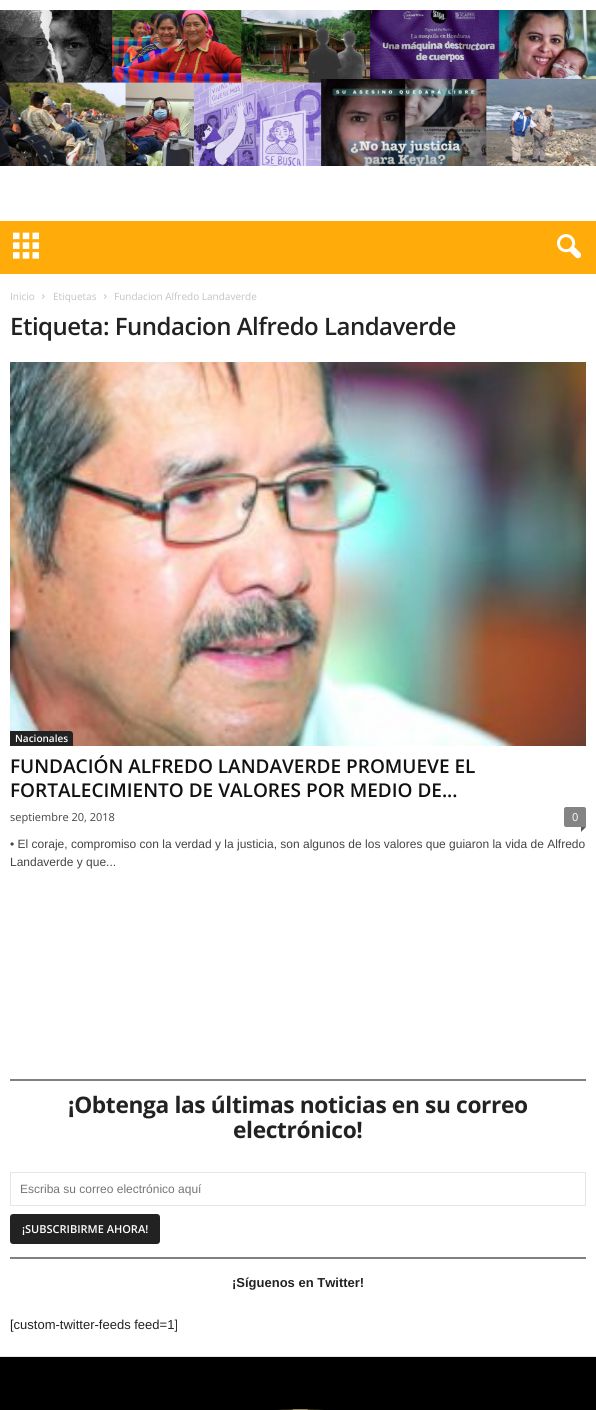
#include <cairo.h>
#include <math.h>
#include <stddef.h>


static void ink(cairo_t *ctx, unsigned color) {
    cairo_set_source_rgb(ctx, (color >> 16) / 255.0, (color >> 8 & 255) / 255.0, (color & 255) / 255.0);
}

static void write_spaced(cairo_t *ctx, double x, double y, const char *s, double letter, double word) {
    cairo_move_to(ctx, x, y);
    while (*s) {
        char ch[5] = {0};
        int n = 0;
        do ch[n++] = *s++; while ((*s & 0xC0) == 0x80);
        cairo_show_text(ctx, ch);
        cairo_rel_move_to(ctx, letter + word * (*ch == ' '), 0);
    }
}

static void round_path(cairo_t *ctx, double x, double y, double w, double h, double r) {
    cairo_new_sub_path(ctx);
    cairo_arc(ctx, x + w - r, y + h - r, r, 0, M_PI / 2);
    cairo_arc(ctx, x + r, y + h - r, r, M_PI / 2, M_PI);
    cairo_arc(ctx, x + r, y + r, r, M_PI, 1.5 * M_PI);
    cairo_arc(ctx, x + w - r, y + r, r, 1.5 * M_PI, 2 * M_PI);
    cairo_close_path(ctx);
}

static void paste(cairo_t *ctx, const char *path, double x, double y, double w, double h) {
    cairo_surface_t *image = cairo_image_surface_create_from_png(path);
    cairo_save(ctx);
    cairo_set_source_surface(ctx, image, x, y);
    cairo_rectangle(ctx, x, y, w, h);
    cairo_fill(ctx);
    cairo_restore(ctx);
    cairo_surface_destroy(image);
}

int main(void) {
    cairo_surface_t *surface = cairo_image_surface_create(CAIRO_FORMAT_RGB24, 596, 1410);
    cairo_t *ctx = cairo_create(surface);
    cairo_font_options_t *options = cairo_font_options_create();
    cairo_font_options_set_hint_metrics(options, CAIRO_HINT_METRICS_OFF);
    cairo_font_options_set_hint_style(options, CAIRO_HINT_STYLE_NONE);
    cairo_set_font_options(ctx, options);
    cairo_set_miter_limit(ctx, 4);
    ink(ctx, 0xFFFFFF);
    cairo_paint(ctx);
    paste(ctx, "media/1.png", 0, 10, 596, 156);
    ink(ctx, 0xFFAC0A);
    cairo_rectangle(ctx, 0, 221, 596, 53);
    cairo_fill(ctx);
    paste(ctx, "media/2.png", 13, 232, 26, 27);
    paste(ctx, "media/3.png", 557, 234, 25, 25);
    ink(ctx, 0xE6E6E6);
    cairo_rectangle(ctx, 0, 1356, 596, 1);
    cairo_fill(ctx);
    cairo_select_font_face(ctx, "Open Sans", CAIRO_FONT_SLANT_NORMAL, CAIRO_FONT_WEIGHT_NORMAL);
    cairo_set_font_size(ctx, 10);
    ink(ctx, 0xC3C3C3);
    cairo_move_to(ctx, 10, 300);
    cairo_show_text(ctx, "Inicio");
    paste(ctx, "media/4.png", 42, 294, 3, 5);
    cairo_move_to(ctx, 53, 300);
    cairo_show_text(ctx, "Etiquetas");
    paste(ctx, "media/4.png", 104, 294, 3, 5);
    cairo_move_to(ctx, 114, 300);
    cairo_show_text(ctx, "Fundacion Alfredo Landaverde");
    cairo_select_font_face(ctx, "Open Sans SemiBold", CAIRO_FONT_SLANT_NORMAL, CAIRO_FONT_WEIGHT_NORMAL);
    cairo_set_font_size(ctx, 24);
    ink(ctx, 0x222222);
    write_spaced(ctx, 10, 335, "Etiqueta: Fundacion Alfredo Landaverde", -0.5, 0);
    paste(ctx, "media/5.png", 10, 362, 576, 384);
    cairo_new_path(ctx);
    cairo_move_to(ctx, 10, 731);
    cairo_line_to(ctx, 70, 731);
    cairo_curve_to(ctx, 71.5, 731, 73, 732.5, 73, 734);
    cairo_line_to(ctx, 73, 746);
    cairo_line_to(ctx, 10, 746);
    cairo_close_path(ctx);
    cairo_fill(ctx);
    cairo_set_font_size(ctx, 10);
    ink(ctx, 0xFFFFFF);
    cairo_move_to(ctx, 15, 742);
    cairo_show_text(ctx, "Nacionales");
    cairo_set_font_size(ctx, 19);
    ink(ctx, 0x111111);
    cairo_move_to(ctx, 10, 773);
    cairo_show_text(ctx, "FUNDACIÓN ALFREDO LANDAVERDE PROMUEVE EL");
    cairo_move_to(ctx, 10, 797);
    cairo_show_text(ctx, "FORTALECIMIENTO DE VALORES POR MEDIO DE...");
    cairo_select_font_face(ctx, "Open Sans", CAIRO_FONT_SLANT_NORMAL, CAIRO_FONT_WEIGHT_NORMAL);
    cairo_set_font_size(ctx, 11);
    ink(ctx, 0x444444);
    cairo_move_to(ctx, 10, 821);
    cairo_show_text(ctx, "septiembre 20, 2018");
    ink(ctx, 0x848484);
    cairo_new_path(ctx);
    cairo_move_to(ctx, 566, 807);
    cairo_line_to(ctx, 584, 807);
    cairo_curve_to(ctx, 585, 807, 586, 808, 586, 809);
    cairo_line_to(ctx, 586, 827);
    cairo_line_to(ctx, 566, 827);
    cairo_curve_to(ctx, 565, 827, 564, 826, 564, 825);
    cairo_line_to(ctx, 564, 809);
    cairo_curve_to(ctx, 564, 808, 565, 807, 566, 807);
    cairo_close_path(ctx);
    cairo_fill(ctx);
    ink(ctx, 0xFFFFFF);
    cairo_move_to(ctx, 572, 821);
    cairo_show_text(ctx, "0");
    ink(ctx, 0x5B5B5B);
    cairo_new_path(ctx);
    cairo_move_to(ctx, 581, 827);
    cairo_line_to(ctx, 586, 827);
    cairo_line_to(ctx, 581, 832);
    cairo_close_path(ctx);
    cairo_fill(ctx);
    cairo_select_font_face(ctx, "Liberation Sans", CAIRO_FONT_SLANT_NORMAL, CAIRO_FONT_WEIGHT_NORMAL);
    cairo_set_font_size(ctx, 12);
    ink(ctx, 0x444444);
    cairo_move_to(ctx, 10, 848);
    cairo_show_text(ctx, "• El coraje, compromiso con la verdad y la justicia, son algunos de los valores que guiaron la vida de Alfredo");
    cairo_move_to(ctx, 10, 866);
    cairo_show_text(ctx, "Landaverde y que...");
    ink(ctx, 0x808080);
    cairo_rectangle(ctx, 10, 1079, 576, 2);
    cairo_fill(ctx);
    cairo_select_font_face(ctx, "Open Sans", CAIRO_FONT_SLANT_NORMAL, CAIRO_FONT_WEIGHT_BOLD);
    cairo_set_font_size(ctx, 22.7);
    ink(ctx, 0x222222);
    write_spaced(ctx, 68, 1113, "¡Obtenga las últimas noticias en su correo", -0.35, 0);
    write_spaced(ctx, 233, 1138, "electrónico!", -0.35, 0);
    cairo_rectangle(ctx, 10.5, 1172.5, 575, 33);
    ink(ctx, 0xE6E6E6);
    cairo_set_line_width(ctx, 1);
    cairo_stroke(ctx);
    cairo_select_font_face(ctx, "Liberation Sans", CAIRO_FONT_SLANT_NORMAL, CAIRO_FONT_WEIGHT_NORMAL);
    cairo_set_font_size(ctx, 12);
    ink(ctx, 0x757575);
    cairo_move_to(ctx, 20, 1193);
    cairo_show_text(ctx, "Escriba su correo electrónico aquí");
    ink(ctx, 0x222222);
    round_path(ctx, 10, 1214, 150, 30, 3);
    cairo_fill(ctx);
    cairo_select_font_face(ctx, "Open Sans SemiBold", CAIRO_FONT_SLANT_NORMAL, CAIRO_FONT_WEIGHT_NORMAL);
    cairo_set_font_size(ctx, 11);
    ink(ctx, 0xFFFFFF);
    cairo_move_to(ctx, 22, 1233);
    cairo_show_text(ctx, "¡SUBSCRIBIRME AHORA!");
    ink(ctx, 0x808080);
    cairo_rectangle(ctx, 10, 1257, 576, 2);
    cairo_fill(ctx);
    cairo_select_font_face(ctx, "Liberation Sans", CAIRO_FONT_SLANT_NORMAL, CAIRO_FONT_WEIGHT_BOLD);
    cairo_set_font_size(ctx, 13);
    ink(ctx, 0x222222);
    cairo_move_to(ctx, 232, 1287);
    cairo_show_text(ctx, "¡Síguenos en Twitter!");
    cairo_select_font_face(ctx, "Liberation Sans", CAIRO_FONT_SLANT_NORMAL, CAIRO_FONT_WEIGHT_NORMAL);
    cairo_move_to(ctx, 10, 1329);
    cairo_show_text(ctx, "[custom-twitter-feeds feed=1]");
    ink(ctx, 0x000000);
    cairo_rectangle(ctx, 0, 1357, 596, 53);
    cairo_fill(ctx);
    paste(ctx, "media/6.png", 277, 1409, 47, 1);
    cairo_surface_write_to_png(surface, "image.png");
    cairo_font_options_destroy(options);
    cairo_destroy(ctx);
    cairo_surface_destroy(surface);
    return 0;
}
